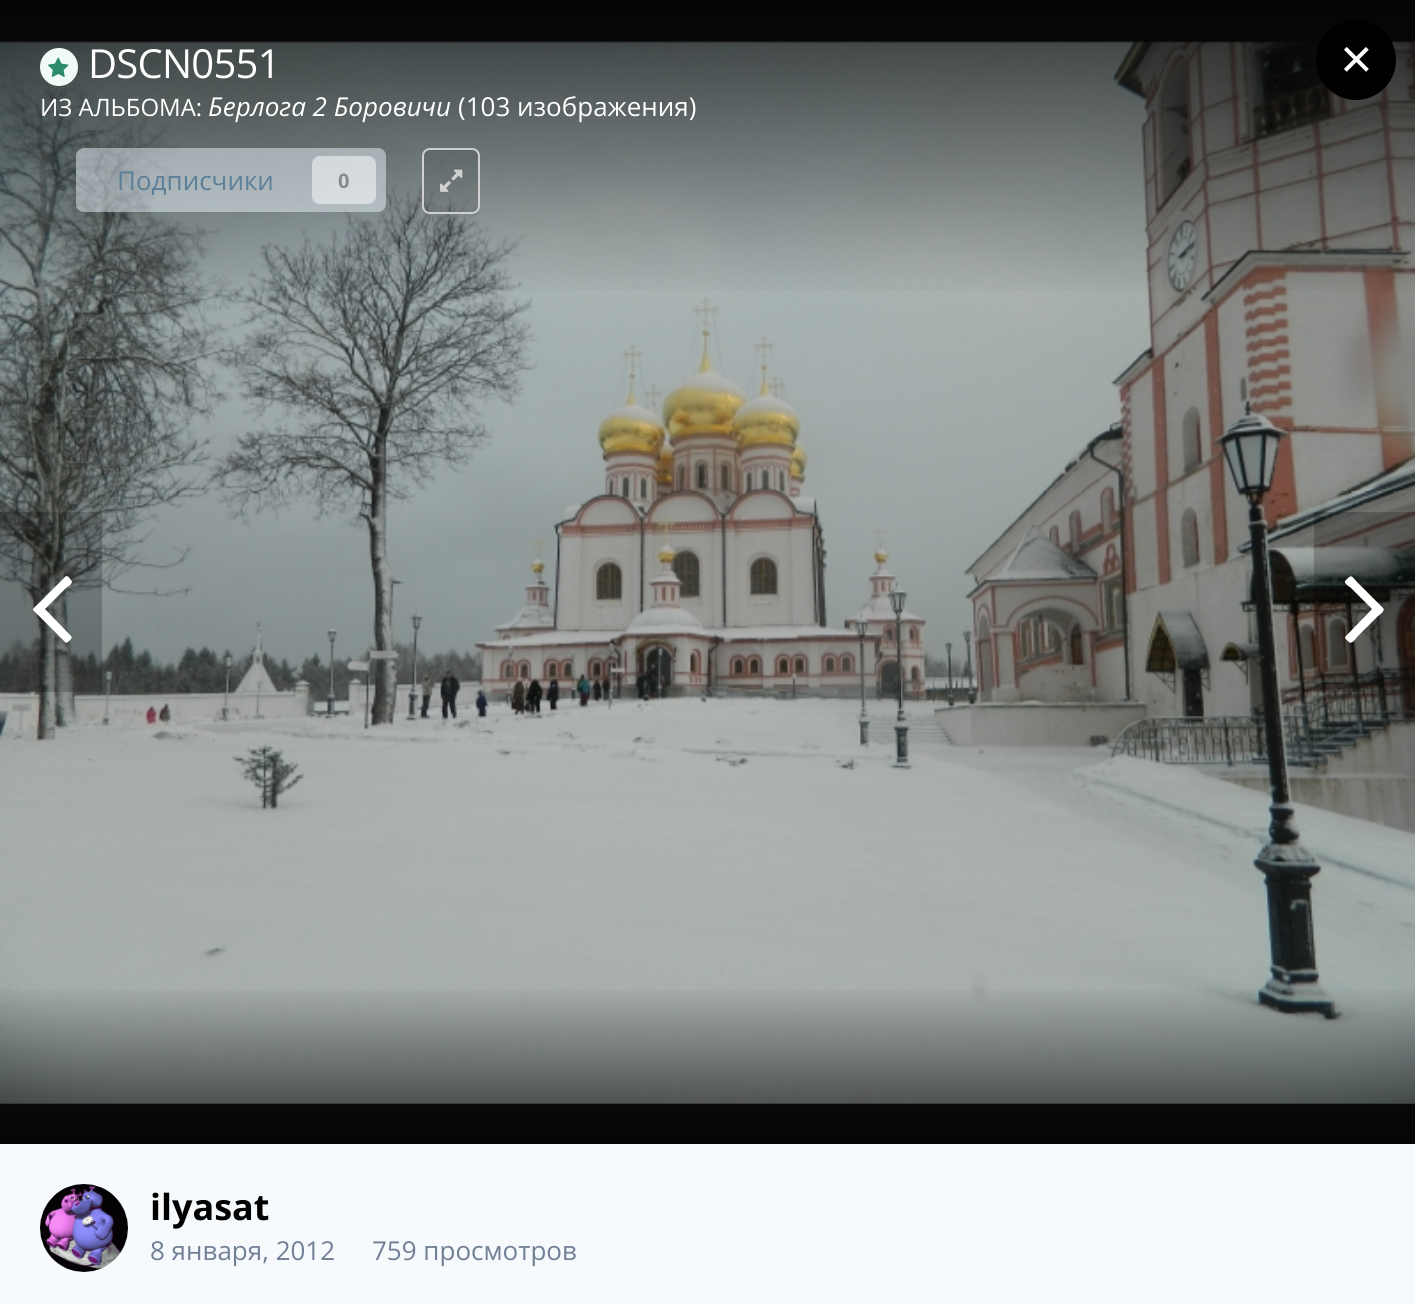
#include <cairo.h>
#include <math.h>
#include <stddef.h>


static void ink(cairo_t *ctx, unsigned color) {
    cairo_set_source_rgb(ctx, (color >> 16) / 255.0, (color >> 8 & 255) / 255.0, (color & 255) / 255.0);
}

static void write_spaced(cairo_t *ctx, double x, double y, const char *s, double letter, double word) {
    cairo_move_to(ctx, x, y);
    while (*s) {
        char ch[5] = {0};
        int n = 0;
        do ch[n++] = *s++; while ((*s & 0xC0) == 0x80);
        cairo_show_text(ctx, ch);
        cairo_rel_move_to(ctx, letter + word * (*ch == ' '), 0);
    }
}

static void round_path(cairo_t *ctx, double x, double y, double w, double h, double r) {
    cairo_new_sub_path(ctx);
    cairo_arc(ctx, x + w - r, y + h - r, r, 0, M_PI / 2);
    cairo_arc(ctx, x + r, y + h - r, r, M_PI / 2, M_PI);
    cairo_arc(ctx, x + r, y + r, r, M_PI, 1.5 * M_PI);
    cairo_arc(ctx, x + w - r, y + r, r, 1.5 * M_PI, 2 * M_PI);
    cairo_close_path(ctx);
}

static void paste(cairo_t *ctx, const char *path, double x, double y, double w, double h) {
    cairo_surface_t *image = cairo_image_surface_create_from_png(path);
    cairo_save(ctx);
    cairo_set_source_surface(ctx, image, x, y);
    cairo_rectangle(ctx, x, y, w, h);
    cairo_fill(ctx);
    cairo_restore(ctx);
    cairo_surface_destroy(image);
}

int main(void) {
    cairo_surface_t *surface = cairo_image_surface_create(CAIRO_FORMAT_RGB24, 1415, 1304);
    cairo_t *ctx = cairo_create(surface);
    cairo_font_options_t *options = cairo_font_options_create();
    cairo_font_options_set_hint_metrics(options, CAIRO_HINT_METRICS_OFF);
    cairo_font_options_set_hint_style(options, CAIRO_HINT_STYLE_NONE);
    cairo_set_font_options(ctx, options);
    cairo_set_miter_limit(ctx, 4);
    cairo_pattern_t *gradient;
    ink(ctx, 0x111111);
    cairo_paint(ctx);
    paste(ctx, "media/1.png", 0, 41, 1415, 1063);
    gradient = cairo_pattern_create_linear(708, 0, 708, 300);
    cairo_pattern_add_color_stop_rgba(gradient, 0, 0, 0, 0, 0.7);
    cairo_pattern_add_color_stop_rgba(gradient, 1, 0, 0, 0, 0);
    cairo_set_source(ctx, gradient);
    cairo_pattern_destroy(gradient);
    cairo_rectangle(ctx, 0, 0, 1415, 291);
    cairo_fill(ctx);
    ink(ctx, 0xF0FAF6);
    cairo_arc(ctx, 59, 67, 19, 0, 2 * M_PI);
    cairo_fill(ctx);
    paste(ctx, "media/2.png", 48, 57, 21, 20);
    cairo_select_font_face(ctx, "Open Sans", CAIRO_FONT_SLANT_NORMAL, CAIRO_FONT_WEIGHT_NORMAL);
    cairo_set_font_size(ctx, 40);
    ink(ctx, 0xFFFFFF);
    write_spaced(ctx, 88, 78, "DSCN0551", -0.75, 0);
    cairo_set_font_size(ctx, 24);
    cairo_move_to(ctx, 40, 116);
    cairo_show_text(ctx, "ИЗ АЛЬБОМА:");
    cairo_select_font_face(ctx, "Open Sans", CAIRO_FONT_SLANT_ITALIC, CAIRO_FONT_WEIGHT_NORMAL);
    cairo_set_font_size(ctx, 26);
    cairo_move_to(ctx, 208, 116);
    cairo_show_text(ctx, "Берлога 2 Боровичи");
    cairo_select_font_face(ctx, "Open Sans", CAIRO_FONT_SLANT_NORMAL, CAIRO_FONT_WEIGHT_NORMAL);
    cairo_move_to(ctx, 458, 116);
    cairo_show_text(ctx, "(103 изображения)");
    cairo_set_source_rgba(ctx, 0.91, 0.949, 0.98, 0.5);
    round_path(ctx, 76, 148, 310, 64, 8);
    cairo_fill(ctx);
    ink(ctx, 0x5B7F98);
    cairo_move_to(ctx, 117, 190);
    cairo_show_text(ctx, "Подписчики");
    cairo_set_source_rgba(ctx, 1, 1, 1, 0.5);
    round_path(ctx, 312, 156, 64, 48, 8);
    cairo_fill(ctx);
    cairo_select_font_face(ctx, "Open Sans", CAIRO_FONT_SLANT_NORMAL, CAIRO_FONT_WEIGHT_BOLD);
    cairo_set_font_size(ctx, 20);
    ink(ctx, 0x868B8F);
    cairo_move_to(ctx, 338, 188);
    cairo_show_text(ctx, "0");
    cairo_set_source_rgba(ctx, 0, 0, 0, 0.1);
    round_path(ctx, 423, 149, 56, 64, 7);
    cairo_fill_preserve(ctx);
    ink(ctx, 0xD0D0D0);
    cairo_stroke(ctx);
    paste(ctx, "media/3.png", 440, 169, 23, 23);
    gradient = cairo_pattern_create_linear(708, 984, 708, 1144);
    cairo_pattern_add_color_stop_rgba(gradient, 0, 0, 0, 0, 0);
    cairo_pattern_add_color_stop_rgba(gradient, 1, 0, 0, 0, 0.7);
    cairo_set_source(ctx, gradient);
    cairo_pattern_destroy(gradient);
    cairo_rectangle(ctx, 0, 989, 1415, 155);
    cairo_fill(ctx);
    cairo_set_source_rgba(ctx, 0, 0, 0, 0.2);
    cairo_rectangle(ctx, 0, 512, 102, 180);
    cairo_fill(ctx);
    ink(ctx, 0xFFFFFF);
    cairo_new_path(ctx);
    cairo_move_to(ctx, 71, 580);
    cairo_curve_to(ctx, 74, 583, 68, 587, 67, 587);
    cairo_line_to(ctx, 45, 609);
    cairo_line_to(ctx, 71, 636);
    cairo_curve_to(ctx, 73, 638, 70, 640, 69, 641);
    cairo_curve_to(ctx, 68, 642, 66, 644, 65, 642);
    cairo_line_to(ctx, 39, 616);
    cairo_curve_to(ctx, 31, 608, 31, 611, 39, 603);
    cairo_line_to(ctx, 65, 577);
    cairo_curve_to(ctx, 67, 574, 70, 579, 71, 580);
    cairo_close_path(ctx);
    cairo_fill(ctx);
    cairo_set_source_rgba(ctx, 0, 0, 0, 0.2);
    cairo_rectangle(ctx, 1314, 512, 101, 180);
    cairo_fill(ctx);
    ink(ctx, 0xFFFFFF);
    cairo_new_path(ctx);
    cairo_move_to(ctx, 1383, 608);
    cairo_curve_to(ctx, 1386, 611, 1378, 616, 1378, 616);
    cairo_line_to(ctx, 1357, 637);
    cairo_curve_to(ctx, 1357, 637, 1352, 645, 1349, 642);
    cairo_curve_to(ctx, 1348, 641, 1343, 638, 1346, 636);
    cairo_line_to(ctx, 1372, 609);
    cairo_line_to(ctx, 1350, 587);
    cairo_curve_to(ctx, 1349, 587, 1344, 583, 1345, 581);
    cairo_line_to(ctx, 1348, 578);
    cairo_curve_to(ctx, 1352, 574, 1353, 578, 1357, 582);
    cairo_close_path(ctx);
    cairo_fill(ctx);
    ink(ctx, 0xF7FAFC);
    cairo_rectangle(ctx, 0, 1144, 1415, 160);
    cairo_fill(ctx);
    ink(ctx, 0xFFFFFF);
    cairo_arc(ctx, 84, 1228, 44, 0, 2 * M_PI);
    cairo_fill(ctx);
    paste(ctx, "media/4.png", 40, 1184, 88, 88);
    cairo_set_font_size(ctx, 36);
    ink(ctx, 0x000000);
    cairo_move_to(ctx, 150, 1220);
    cairo_show_text(ctx, "ilyasat");
    cairo_select_font_face(ctx, "Open Sans", CAIRO_FONT_SLANT_NORMAL, CAIRO_FONT_WEIGHT_NORMAL);
    cairo_set_font_size(ctx, 26);
    ink(ctx, 0x718096);
    cairo_move_to(ctx, 150, 1260);
    cairo_show_text(ctx, "8 января, 2012");
    cairo_move_to(ctx, 372, 1260);
    cairo_show_text(ctx, "759 просмотров");
    ink(ctx, 0x000000);
    cairo_new_path(ctx);
    cairo_arc(ctx, 1356, 60, 40, 0, 2 * M_PI);
    cairo_fill(ctx);
    cairo_select_font_face(ctx, "Liberation Sans", CAIRO_FONT_SLANT_NORMAL, CAIRO_FONT_WEIGHT_NORMAL);
    cairo_set_font_size(ctx, 56);
    ink(ctx, 0xFFFFFF);
    cairo_move_to(ctx, 1340, 78);
    cairo_show_text(ctx, "×");
    cairo_surface_write_to_png(surface, "image.png");
    cairo_font_options_destroy(options);
    cairo_destroy(ctx);
    cairo_surface_destroy(surface);
    return 0;
}
